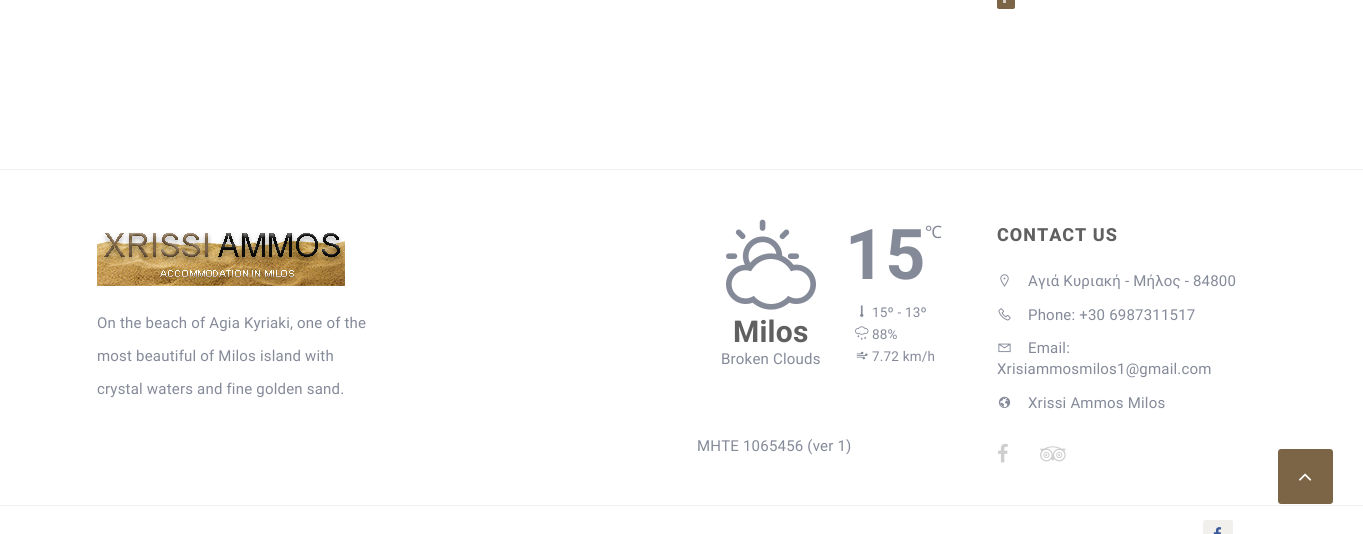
#include <cairo.h>
#include <math.h>
#include <stddef.h>

typedef struct { double x, y; const char *s; } line_t;
typedef struct { double x, y, w, h; unsigned color; } box_t;

static void ink(cairo_t *ctx, unsigned color) {
    cairo_set_source_rgb(ctx, (color >> 16) / 255.0, (color >> 8 & 255) / 255.0, (color & 255) / 255.0);
}

static void write_spaced(cairo_t *ctx, double x, double y, const char *s, double letter, double word) {
    cairo_move_to(ctx, x, y);
    while (*s) {
        char ch[5] = {0};
        int n = 0;
        do ch[n++] = *s++; while ((*s & 0xC0) == 0x80);
        cairo_show_text(ctx, ch);
        cairo_rel_move_to(ctx, letter + word * (*ch == ' '), 0);
    }
}

static void round_path(cairo_t *ctx, double x, double y, double w, double h, double r) {
    cairo_new_sub_path(ctx);
    cairo_arc(ctx, x + w - r, y + h - r, r, 0, M_PI / 2);
    cairo_arc(ctx, x + r, y + h - r, r, M_PI / 2, M_PI);
    cairo_arc(ctx, x + r, y + r, r, M_PI, 1.5 * M_PI);
    cairo_arc(ctx, x + w - r, y + r, r, 1.5 * M_PI, 2 * M_PI);
    cairo_close_path(ctx);
}

static void paste(cairo_t *ctx, const char *path, double x, double y, double w, double h) {
    cairo_surface_t *image = cairo_image_surface_create_from_png(path);
    cairo_save(ctx);
    cairo_set_source_surface(ctx, image, x, y);
    cairo_rectangle(ctx, x, y, w, h);
    cairo_fill(ctx);
    cairo_restore(ctx);
    cairo_surface_destroy(image);
}

int main(void) {
    cairo_surface_t *surface = cairo_image_surface_create(CAIRO_FORMAT_RGB24, 1363, 534);
    cairo_t *ctx = cairo_create(surface);
    cairo_font_options_t *options = cairo_font_options_create();
    cairo_font_options_set_hint_metrics(options, CAIRO_HINT_METRICS_OFF);
    cairo_font_options_set_hint_style(options, CAIRO_HINT_STYLE_NONE);
    cairo_set_font_options(ctx, options);
    cairo_set_miter_limit(ctx, 4);
    ink(ctx, 0xFFFFFF);
    cairo_paint(ctx);
    ink(ctx, 0x7C6547);
    round_path(ctx, 997, -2, 18, 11, 2);
    cairo_fill(ctx);
    {
        static const box_t items[] = {
            {1003, 0, 3, 3, 0xD5CEC4},
            {0, 169, 1363, 1, 0xF0F0F0},
            {0, 505, 1363, 1, 0xF0F0F0},
        };
        for (size_t i = 0; i < sizeof items / sizeof *items; i++) {
            ink(ctx, items[i].color);
            cairo_rectangle(ctx, items[i].x, items[i].y, items[i].w, items[i].h);
            cairo_fill(ctx);
        }
    }
    paste(ctx, "media/1.png", 97, 232, 248, 54);
    cairo_select_font_face(ctx, "Roboto", CAIRO_FONT_SLANT_NORMAL, CAIRO_FONT_WEIGHT_NORMAL);
    cairo_set_font_size(ctx, 15);
    ink(ctx, 0x858A99);
    {
        static const line_t items[] = {
            {97, 328, "On the beach of Agia Kyriaki, one of the"},
            {97, 361, "most beautiful of Milos island with"},
            {97, 394, "crystal waters and fine golden sand."},
        };
        for (size_t i = 0; i < sizeof items / sizeof *items; i++) {
            write_spaced(ctx, items[i].x, items[i].y, items[i].s, 0.2, 0);
        }
    }
    paste(ctx, "media/2.png", 726, 219, 90, 91);
    cairo_select_font_face(ctx, "Roboto", CAIRO_FONT_SLANT_NORMAL, CAIRO_FONT_WEIGHT_BOLD);
    cairo_set_font_size(ctx, 30);
    ink(ctx, 0x606060);
    write_spaced(ctx, 733, 342, "Milos", 0.2, 0);
    cairo_select_font_face(ctx, "Roboto", CAIRO_FONT_SLANT_NORMAL, CAIRO_FONT_WEIGHT_NORMAL);
    cairo_set_font_size(ctx, 15);
    ink(ctx, 0x858A99);
    write_spaced(ctx, 721, 364, "Broken Clouds", 0.2, 0);
    cairo_select_font_face(ctx, "Roboto", CAIRO_FONT_SLANT_NORMAL, CAIRO_FONT_WEIGHT_BOLD);
    cairo_set_font_size(ctx, 70);
    write_spaced(ctx, 845, 279, "15", 0.2, 0);
    cairo_select_font_face(ctx, "Noto Sans", CAIRO_FONT_SLANT_NORMAL, CAIRO_FONT_WEIGHT_NORMAL);
    cairo_set_font_size(ctx, 17);
    write_spaced(ctx, 925, 238, "℃", 0.2, 0);
    paste(ctx, "media/3.png", 860, 305, 4, 12);
    cairo_select_font_face(ctx, "Roboto", CAIRO_FONT_SLANT_NORMAL, CAIRO_FONT_WEIGHT_NORMAL);
    cairo_set_font_size(ctx, 13.5);
    write_spaced(ctx, 872, 317, "15º - 13º", 0.2, 0);
    paste(ctx, "media/4.png", 855, 326, 14, 14);
    write_spaced(ctx, 872, 339, "88%", 0.2, 0);
    paste(ctx, "media/5.png", 856, 351, 12, 9);
    write_spaced(ctx, 872, 361, "7.72 km/h", 0.2, 0);
    cairo_set_font_size(ctx, 15);
    write_spaced(ctx, 697, 451, "MHTE 1065456 (ver 1)", 0.2, 0);
    cairo_select_font_face(ctx, "Roboto ExtraBold", CAIRO_FONT_SLANT_NORMAL, CAIRO_FONT_WEIGHT_NORMAL);
    cairo_set_font_size(ctx, 18);
    ink(ctx, 0x606060);
    write_spaced(ctx, 997, 241, "CONTACT US", 1, 0);
    paste(ctx, "media/6.png", 1000, 274, 9, 13);
    cairo_select_font_face(ctx, "Roboto", CAIRO_FONT_SLANT_NORMAL, CAIRO_FONT_WEIGHT_NORMAL);
    cairo_set_font_size(ctx, 15);
    ink(ctx, 0x858A99);
    write_spaced(ctx, 1028, 286, "Αγιά Κυριακή - Μήλος - 84800", 0.2, 0);
    paste(ctx, "media/7.png", 998, 308, 13, 13);
    write_spaced(ctx, 1028, 320, "Phone: +30 6987311517", 0.2, 0);
    paste(ctx, "media/8.png", 998, 343, 13, 10);
    write_spaced(ctx, 1028, 353, "Email:", 0.2, 0);
    write_spaced(ctx, 997, 374, "Xrisiammosmilos1@gmail.com", 0.2, 0);
    paste(ctx, "media/9.png", 998, 396, 13, 12);
    write_spaced(ctx, 1028, 408, "Xrissi Ammos Milos", 0.2, 0);
    paste(ctx, "media/10.png", 998, 443, 10, 20);
    paste(ctx, "media/11.png", 1040, 446, 26, 16);
    ink(ctx, 0xF1F0ED);
    round_path(ctx, 1203, 520, 30, 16, 2);
    cairo_fill(ctx);
    paste(ctx, "media/12.png", 1213, 527, 9, 7);
    ink(ctx, 0x7C6547);
    round_path(ctx, 1278, 449, 55, 55, 3);
    cairo_fill(ctx);
    paste(ctx, "media/13.png", 1299, 473, 13, 8);
    cairo_surface_write_to_png(surface, "image.png");
    cairo_font_options_destroy(options);
    cairo_destroy(ctx);
    cairo_surface_destroy(surface);
    return 0;
}
